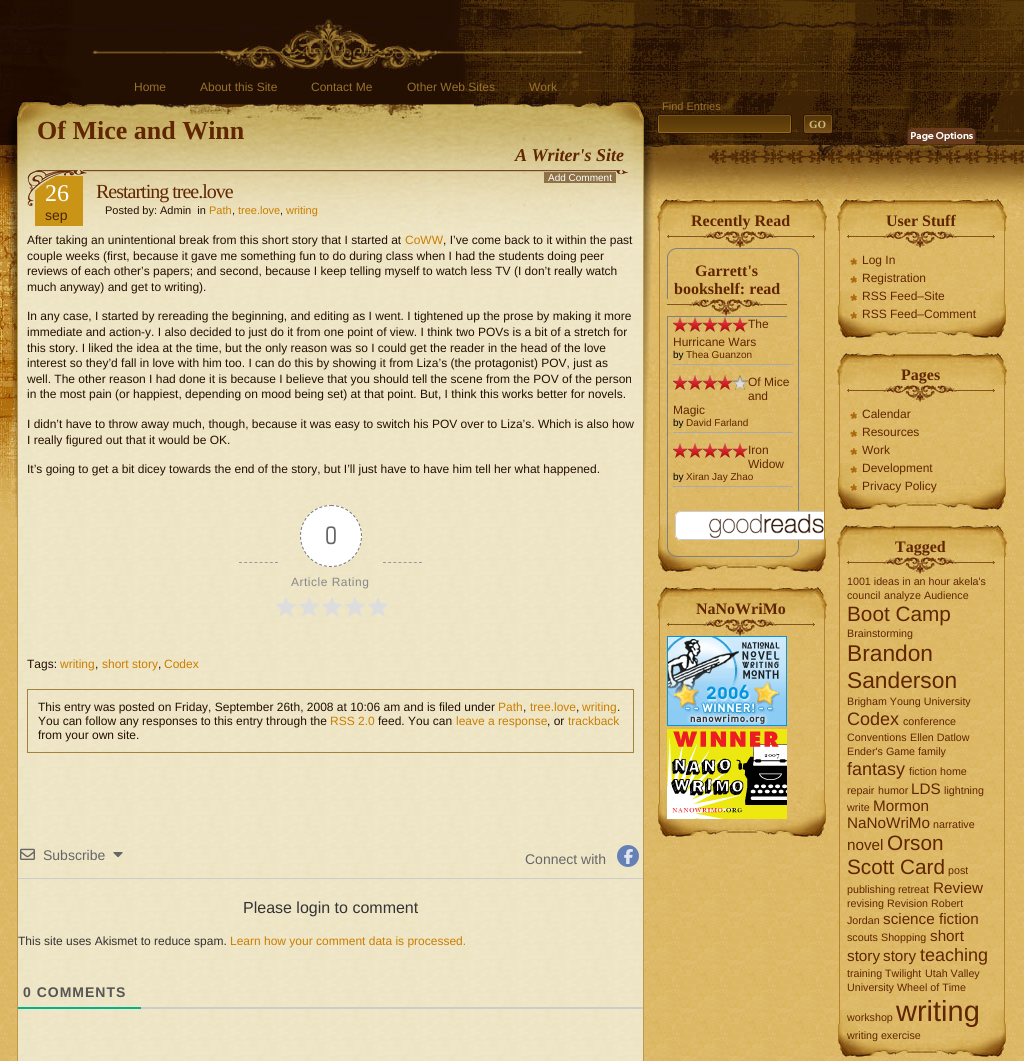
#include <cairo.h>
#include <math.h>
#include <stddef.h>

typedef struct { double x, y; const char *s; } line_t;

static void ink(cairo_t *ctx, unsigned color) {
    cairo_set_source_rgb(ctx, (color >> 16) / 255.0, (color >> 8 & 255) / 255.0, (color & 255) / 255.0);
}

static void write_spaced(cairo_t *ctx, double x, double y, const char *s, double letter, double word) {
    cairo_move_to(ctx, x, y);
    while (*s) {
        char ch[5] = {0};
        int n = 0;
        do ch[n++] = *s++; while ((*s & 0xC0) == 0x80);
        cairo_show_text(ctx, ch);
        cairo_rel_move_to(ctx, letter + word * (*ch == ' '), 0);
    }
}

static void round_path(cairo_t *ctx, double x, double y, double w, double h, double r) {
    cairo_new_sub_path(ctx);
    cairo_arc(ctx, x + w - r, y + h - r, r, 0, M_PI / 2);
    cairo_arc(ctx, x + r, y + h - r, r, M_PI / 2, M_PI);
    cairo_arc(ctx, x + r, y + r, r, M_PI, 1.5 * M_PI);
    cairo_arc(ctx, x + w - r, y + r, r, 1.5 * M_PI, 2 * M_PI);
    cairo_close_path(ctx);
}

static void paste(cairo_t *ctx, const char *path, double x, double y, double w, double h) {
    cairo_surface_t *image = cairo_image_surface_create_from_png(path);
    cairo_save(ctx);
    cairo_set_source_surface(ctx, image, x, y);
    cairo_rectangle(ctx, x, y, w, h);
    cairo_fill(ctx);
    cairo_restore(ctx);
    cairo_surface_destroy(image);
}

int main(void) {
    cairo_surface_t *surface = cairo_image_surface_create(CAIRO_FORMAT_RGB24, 1024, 1061);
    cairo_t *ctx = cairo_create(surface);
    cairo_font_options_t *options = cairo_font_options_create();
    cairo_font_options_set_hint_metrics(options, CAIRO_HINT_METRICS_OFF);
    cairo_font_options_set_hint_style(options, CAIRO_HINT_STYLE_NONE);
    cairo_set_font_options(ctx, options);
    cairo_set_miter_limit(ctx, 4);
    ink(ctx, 0xFFFFFF);
    cairo_paint(ctx);
    paste(ctx, "media/1.png", 0, 223, 1024, 838);
    paste(ctx, "media/2.png", 0, 0, 17, 113);
    paste(ctx, "media/3.png", 0, 113, 17, 404);
    paste(ctx, "media/4.png", 644, 0, 363, 223);
    paste(ctx, "media/5.png", 644, 0, 287, 51);
    paste(ctx, "media/6.png", 17, 0, 627, 170);
    cairo_select_font_face(ctx, "Liberation Sans", CAIRO_FONT_SLANT_NORMAL, CAIRO_FONT_WEIGHT_NORMAL);
    cairo_set_font_size(ctx, 12);
    ink(ctx, 0x97712C);
    {
        static const line_t items[] = {
            {134, 91, "Home"},
            {200, 91, "About this Site"},
            {311, 91, "Contact Me"},
            {407, 91, "Other Web Sites"},
            {529, 91, "Work"},
        };
        for (size_t i = 0; i < sizeof items / sizeof *items; i++) {
            cairo_move_to(ctx, items[i].x, items[i].y);
            cairo_show_text(ctx, items[i].s);
        }
    }
    cairo_select_font_face(ctx, "Liberation Serif", CAIRO_FONT_SLANT_NORMAL, CAIRO_FONT_WEIGHT_BOLD);
    cairo_set_font_size(ctx, 26);
    ink(ctx, 0x602600);
    cairo_move_to(ctx, 37, 139);
    cairo_show_text(ctx, "Of Mice and Winn");
    cairo_select_font_face(ctx, "Liberation Serif", CAIRO_FONT_SLANT_ITALIC, CAIRO_FONT_WEIGHT_BOLD);
    cairo_set_font_size(ctx, 18);
    cairo_move_to(ctx, 515, 161);
    cairo_show_text(ctx, "A Writer's Site");
    cairo_select_font_face(ctx, "Liberation Sans", CAIRO_FONT_SLANT_NORMAL, CAIRO_FONT_WEIGHT_NORMAL);
    cairo_set_font_size(ctx, 11);
    ink(ctx, 0x97712C);
    cairo_move_to(ctx, 662, 110);
    cairo_show_text(ctx, "Find Entries");
    paste(ctx, "media/9.png", 644, 115, 102, 380);
    paste(ctx, "media/7.png", 657, 114, 135, 20);
    paste(ctx, "media/8.png", 803, 114, 30, 20);
    cairo_select_font_face(ctx, "Liberation Serif", CAIRO_FONT_SLANT_NORMAL, CAIRO_FONT_WEIGHT_BOLD);
    ink(ctx, 0xCEB978);
    cairo_move_to(ctx, 809, 128);
    cairo_show_text(ctx, "GO");
    paste(ctx, "media/10.png", 907, 128, 69, 16);
    paste(ctx, "media/11.png", 1007, 0, 17, 223);
    paste(ctx, "media/12.png", 18, 250, 625, 811);
    ink(ctx, 0xB99A4E);
    cairo_rectangle(ctx, 643, 250, 1, 811);
    cairo_fill(ctx);
    cairo_rectangle(ctx, 17, 250, 1, 811);
    cairo_fill(ctx);
    paste(ctx, "media/13.png", 17, 170, 627, 80);
    paste(ctx, "media/14.png", 27, 170, 601, 31);
    ink(ctx, 0x8C7246);
    cairo_rectangle(ctx, 544, 172, 72, 11);
    cairo_fill(ctx);
    cairo_select_font_face(ctx, "Liberation Sans", CAIRO_FONT_SLANT_NORMAL, CAIRO_FONT_WEIGHT_NORMAL);
    cairo_set_font_size(ctx, 10);
    ink(ctx, 0xFFFFFF);
    cairo_move_to(ctx, 548, 181);
    cairo_show_text(ctx, "Add Comment");
    paste(ctx, "media/15.png", 27, 170, 56, 56);
    cairo_select_font_face(ctx, "Liberation Serif", CAIRO_FONT_SLANT_NORMAL, CAIRO_FONT_WEIGHT_NORMAL);
    cairo_set_font_size(ctx, 24);
    cairo_move_to(ctx, 45, 201);
    cairo_show_text(ctx, "26");
    cairo_select_font_face(ctx, "Liberation Sans", CAIRO_FONT_SLANT_NORMAL, CAIRO_FONT_WEIGHT_NORMAL);
    cairo_set_font_size(ctx, 14);
    ink(ctx, 0x4C2604);
    cairo_move_to(ctx, 45, 220);
    cairo_show_text(ctx, "sep");
    cairo_select_font_face(ctx, "Liberation Serif", CAIRO_FONT_SLANT_NORMAL, CAIRO_FONT_WEIGHT_NORMAL);
    cairo_set_font_size(ctx, 20);
    ink(ctx, 0x602600);
    write_spaced(ctx, 96, 198, "Restarting tree.love", -1, 0);
    cairo_select_font_face(ctx, "Liberation Sans", CAIRO_FONT_SLANT_NORMAL, CAIRO_FONT_WEIGHT_NORMAL);
    cairo_set_font_size(ctx, 11);
    ink(ctx, 0x240F02);
    cairo_move_to(ctx, 105, 214);
    cairo_show_text(ctx, "Posted by: Admin  in");
    ink(ctx, 0xC97E00);
    cairo_move_to(ctx, 209, 214);
    cairo_show_text(ctx, "Path");
    ink(ctx, 0x240F02);
    cairo_move_to(ctx, 232, 214);
    cairo_show_text(ctx, ",");
    ink(ctx, 0xC97E00);
    cairo_move_to(ctx, 238, 214);
    cairo_show_text(ctx, "tree.love");
    ink(ctx, 0x240F02);
    cairo_move_to(ctx, 280, 214);
    cairo_show_text(ctx, ",");
    ink(ctx, 0xC97E00);
    cairo_move_to(ctx, 286, 214);
    cairo_show_text(ctx, "writing");
    cairo_set_font_size(ctx, 12);
    ink(ctx, 0x240F02);
    cairo_move_to(ctx, 27, 244);
    cairo_show_text(ctx, "After taking an unintentional break from this short story that I started at");
    ink(ctx, 0xC97E00);
    cairo_move_to(ctx, 405, 244);
    cairo_show_text(ctx, "CoWW");
    ink(ctx, 0x240F02);
    {
        static const line_t items[] = {
            {443, 244, ", I’ve come back to it within the past"},
            {27, 260, "couple weeks (first, because it gave me something fun to do during class when I had the students doing peer"},
            {27, 275, "reviews of each other’s papers; and second, because I keep telling myself to watch less TV (I don’t really watch"},
            {27, 291, "much anyway) and get to writing)."},
            {27, 320, "In any case, I started by rereading the beginning, and editing as I went. I tightened up the prose by making it more"},
            {27, 336, "immediate and action-y. I also decided to just do it from one point of view. I think two POVs is a bit of a stretch for"},
            {27, 352, "this story. I liked the idea at the time, but the only reason was so I could get the reader in the head of the love"},
            {27, 367, "interest so they’d fall in love with him too. I can do this by showing it from Liza’s (the protagonist) POV, just as"},
            {27, 383, "well. The other reason I had done it is because I believe that you should tell the scene from the POV of the person"},
            {27, 398, "in the most pain (or happiest, depending on mood being set) at that point. But, I think this works better for novels."},
            {27, 428, "I didn’t have to throw away much, though, because it was easy to switch his POV over to Liza’s. Which is also how"},
            {27, 444, "I really figured out that it would be OK."},
            {27, 473, "It’s going to get a bit dicey towards the end of the story, but I’ll just have to have him tell her what happened."},
        };
        for (size_t i = 0; i < sizeof items / sizeof *items; i++) {
            cairo_move_to(ctx, items[i].x, items[i].y);
            cairo_show_text(ctx, items[i].s);
        }
    }
    cairo_new_path(ctx);
    cairo_move_to(ctx, 239, 562.5);
    cairo_line_to(ctx, 278, 562.5);
    ink(ctx, 0x999999);
    cairo_set_line_width(ctx, 1);
    cairo_set_dash(ctx, (double[]){3, 2.14}, 2, 0);
    cairo_stroke(ctx);
    ink(ctx, 0xFFFFFF);
    cairo_arc(ctx, 331, 536, 31, 0, 2 * M_PI);
    cairo_fill(ctx);
    cairo_new_path(ctx);
    cairo_move_to(ctx, 331, 505.5);
    cairo_curve_to(ctx, 348, 505.5, 361.5, 519, 361.5, 536);
    cairo_curve_to(ctx, 361.5, 553, 348, 566.5, 331, 566.5);
    cairo_curve_to(ctx, 314, 566.5, 300.5, 553, 300.5, 536);
    cairo_curve_to(ctx, 300.5, 519, 314, 505.5, 331, 505.5);
    cairo_close_path(ctx);
    ink(ctx, 0x777777);
    cairo_set_dash(ctx, (double[]){3, 2}, 2, 0);
    cairo_stroke(ctx);
    cairo_select_font_face(ctx, "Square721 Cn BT", CAIRO_FONT_SLANT_NORMAL, CAIRO_FONT_WEIGHT_NORMAL);
    cairo_set_font_size(ctx, 24);
    ink(ctx, 0x666666);
    cairo_move_to(ctx, 325, 544);
    cairo_show_text(ctx, "0");
    cairo_select_font_face(ctx, "Liberation Sans", CAIRO_FONT_SLANT_NORMAL, CAIRO_FONT_WEIGHT_NORMAL);
    cairo_set_font_size(ctx, 12);
    ink(ctx, 0x888888);
    write_spaced(ctx, 291, 586, "Article Rating", 0.5, 0);
    paste(ctx, "media/16.png", 275, 597, 22, 20);
    paste(ctx, "media/17.png", 298, 597, 22, 20);
    paste(ctx, "media/18.png", 321, 597, 22, 20);
    paste(ctx, "media/19.png", 344, 597, 22, 20);
    paste(ctx, "media/20.png", 367, 597, 22, 20);
    cairo_new_path(ctx);
    cairo_move_to(ctx, 383, 562.5);
    cairo_line_to(ctx, 422, 562.5);
    ink(ctx, 0x999999);
    cairo_set_dash(ctx, (double[]){3, 2.14}, 2, 0);
    cairo_stroke(ctx);
    ink(ctx, 0x240F02);
    cairo_move_to(ctx, 27, 668);
    cairo_show_text(ctx, "Tags:");
    ink(ctx, 0xC97E00);
    cairo_move_to(ctx, 60, 668);
    cairo_show_text(ctx, "writing");
    ink(ctx, 0x240F02);
    cairo_move_to(ctx, 95, 668);
    cairo_show_text(ctx, ",");
    ink(ctx, 0xC97E00);
    cairo_move_to(ctx, 102, 668);
    cairo_show_text(ctx, "short story");
    ink(ctx, 0x240F02);
    cairo_move_to(ctx, 158, 668);
    cairo_show_text(ctx, ",");
    ink(ctx, 0xC97E00);
    cairo_move_to(ctx, 164, 668);
    cairo_show_text(ctx, "Codex");
    cairo_rectangle(ctx, 27.5, 689.5, 606, 63);
    ink(ctx, 0xA4813C);
    cairo_set_dash(ctx, NULL, 0, 0);
    cairo_stroke(ctx);
    ink(ctx, 0x240F02);
    cairo_move_to(ctx, 38, 711);
    cairo_show_text(ctx, "This entry was posted on Friday, September 26th, 2008 at 10:06 am and is filed under");
    ink(ctx, 0xC97E00);
    cairo_move_to(ctx, 498, 711);
    cairo_show_text(ctx, "Path");
    ink(ctx, 0x240F02);
    cairo_move_to(ctx, 523, 711);
    cairo_show_text(ctx, ",");
    ink(ctx, 0xC97E00);
    cairo_move_to(ctx, 530, 711);
    cairo_show_text(ctx, "tree.love");
    ink(ctx, 0x240F02);
    cairo_move_to(ctx, 576, 711);
    cairo_show_text(ctx, ",");
    ink(ctx, 0xC97E00);
    cairo_move_to(ctx, 582, 711);
    cairo_show_text(ctx, "writing");
    ink(ctx, 0x240F02);
    cairo_move_to(ctx, 617, 711);
    cairo_show_text(ctx, ".");
    cairo_move_to(ctx, 38, 725);
    cairo_show_text(ctx, "You can follow any responses to this entry through the");
    ink(ctx, 0xC97E00);
    cairo_move_to(ctx, 330, 725);
    cairo_show_text(ctx, "RSS 2.0");
    ink(ctx, 0x240F02);
    cairo_move_to(ctx, 378, 725);
    cairo_show_text(ctx, "feed. You can");
    ink(ctx, 0xC97E00);
    cairo_move_to(ctx, 456, 725);
    cairo_show_text(ctx, "leave a response");
    ink(ctx, 0x240F02);
    cairo_move_to(ctx, 547, 725);
    cairo_show_text(ctx, ", or");
    ink(ctx, 0xC97E00);
    cairo_move_to(ctx, 568, 725);
    cairo_show_text(ctx, "trackback");
    ink(ctx, 0x240F02);
    cairo_move_to(ctx, 38, 739);
    cairo_show_text(ctx, "from your own site.");
    ink(ctx, 0xCCCCCC);
    cairo_rectangle(ctx, 18, 878, 625, 1);
    cairo_fill(ctx);
    paste(ctx, "media/21.png", 20, 848, 15, 12);
    cairo_set_font_size(ctx, 14);
    ink(ctx, 0x666666);
    cairo_move_to(ctx, 43, 860);
    cairo_show_text(ctx, "Subscribe");
    paste(ctx, "media/22.png", 113, 852, 10, 6);
    cairo_move_to(ctx, 525, 864);
    cairo_show_text(ctx, "Connect with");
    cairo_set_source_rgba(ctx, 0.259, 0.404, 0.698, 0.8);
    cairo_new_path(ctx);
    cairo_arc(ctx, 628, 856, 11, 0, 2 * M_PI);
    cairo_fill(ctx);
    paste(ctx, "media/23.png", 624, 849, 9, 15);
    cairo_set_font_size(ctx, 16);
    ink(ctx, 0x333333);
    cairo_move_to(ctx, 243, 913);
    cairo_show_text(ctx, "Please login to comment");
    cairo_set_font_size(ctx, 12);
    cairo_move_to(ctx, 18, 945);
    cairo_show_text(ctx, "This site uses Akismet to reduce spam.");
    ink(ctx, 0xC97E00);
    cairo_move_to(ctx, 230, 945);
    cairo_show_text(ctx, "Learn how your comment data is processed.");
    ink(ctx, 0xCCCCCC);
    cairo_rectangle(ctx, 141, 1007, 502, 2);
    cairo_fill(ctx);
    ink(ctx, 0x00B38F);
    cairo_rectangle(ctx, 18, 1007, 123, 2);
    cairo_fill(ctx);
    cairo_select_font_face(ctx, "Liberation Sans", CAIRO_FONT_SLANT_NORMAL, CAIRO_FONT_WEIGHT_BOLD);
    cairo_set_font_size(ctx, 14);
    ink(ctx, 0x555555);
    write_spaced(ctx, 23, 997, "0 COMMENTS", 1, 0);
    paste(ctx, "media/24.png", 728, 557, 27, 15);
    paste(ctx, "media/25.png", 717, 199, 50, 28);
    ink(ctx, 0xB1832E);
    cairo_rectangle(ctx, 824, 231, 1, 294);
    cairo_fill(ctx);
    cairo_rectangle(ctx, 659, 231, 1, 294);
    cairo_fill(ctx);
    paste(ctx, "media/26.png", 755, 525, 72, 47);
    paste(ctx, "media/27.png", 657, 525, 71, 47);
    paste(ctx, "media/28.png", 767, 199, 60, 32);
    paste(ctx, "media/29.png", 657, 199, 60, 32);
    paste(ctx, "media/30.png", 667, 231, 148, 17);
    cairo_select_font_face(ctx, "Liberation Serif", CAIRO_FONT_SLANT_NORMAL, CAIRO_FONT_WEIGHT_BOLD);
    cairo_set_font_size(ctx, 16);
    ink(ctx, 0x602600);
    cairo_move_to(ctx, 691, 226);
    cairo_show_text(ctx, "Recently Read");
    round_path(ctx, 667.5, 248.5, 131, 308, 9.5);
    ink(ctx, 0x808080);
    cairo_stroke(ctx);
    paste(ctx, "media/31.png", 667, 299, 120, 17);
    cairo_rectangle(ctx, 667, 316, 120, 1);
    cairo_fill(ctx);
    ink(ctx, 0x602600);
    cairo_move_to(ctx, 695, 276);
    cairo_show_text(ctx, "Garrett's");
    cairo_move_to(ctx, 674, 294);
    cairo_show_text(ctx, "bookshelf: read");
    ink(ctx, 0xAAAAAA);
    cairo_rectangle(ctx, 673, 364, 120, 1);
    cairo_fill(ctx);
    paste(ctx, "media/32.png", 673, 317, 15, 15);
    paste(ctx, "media/33.png", 688, 317, 15, 15);
    paste(ctx, "media/34.png", 703, 317, 15, 15);
    paste(ctx, "media/35.png", 718, 317, 15, 15);
    paste(ctx, "media/36.png", 733, 317, 15, 15);
    cairo_select_font_face(ctx, "Liberation Sans", CAIRO_FONT_SLANT_NORMAL, CAIRO_FONT_WEIGHT_NORMAL);
    cairo_set_font_size(ctx, 12);
    ink(ctx, 0x602600);
    cairo_move_to(ctx, 748, 328);
    cairo_show_text(ctx, "The");
    cairo_move_to(ctx, 673, 346);
    cairo_show_text(ctx, "Hurricane Wars");
    cairo_set_font_size(ctx, 10);
    ink(ctx, 0x000000);
    cairo_move_to(ctx, 673, 358);
    cairo_show_text(ctx, "by");
    ink(ctx, 0x602600);
    cairo_move_to(ctx, 686, 358);
    cairo_show_text(ctx, "Thea Guanzon");
    ink(ctx, 0xAAAAAA);
    cairo_rectangle(ctx, 673, 432, 120, 1);
    cairo_fill(ctx);
    paste(ctx, "media/37.png", 673, 375, 15, 15);
    paste(ctx, "media/38.png", 688, 375, 15, 15);
    paste(ctx, "media/39.png", 703, 375, 15, 15);
    paste(ctx, "media/40.png", 718, 375, 15, 15);
    paste(ctx, "media/41.png", 733, 375, 15, 15);
    cairo_set_font_size(ctx, 12);
    ink(ctx, 0x602600);
    {
        static const line_t items[] = {
            {748, 386, "Of Mice"},
            {748, 400, "and"},
            {673, 414, "Magic"},
        };
        for (size_t i = 0; i < sizeof items / sizeof *items; i++) {
            cairo_move_to(ctx, items[i].x, items[i].y);
            cairo_show_text(ctx, items[i].s);
        }
    }
    cairo_set_font_size(ctx, 10);
    ink(ctx, 0x000000);
    cairo_move_to(ctx, 673, 426);
    cairo_show_text(ctx, "by");
    ink(ctx, 0x602600);
    cairo_move_to(ctx, 686, 426);
    cairo_show_text(ctx, "David Farland");
    ink(ctx, 0xAAAAAA);
    cairo_rectangle(ctx, 673, 486, 120, 1);
    cairo_fill(ctx);
    paste(ctx, "media/42.png", 673, 443, 15, 15);
    paste(ctx, "media/43.png", 688, 443, 15, 15);
    paste(ctx, "media/44.png", 703, 443, 15, 15);
    paste(ctx, "media/45.png", 718, 443, 15, 15);
    paste(ctx, "media/46.png", 733, 443, 15, 15);
    cairo_set_font_size(ctx, 12);
    ink(ctx, 0x602600);
    cairo_move_to(ctx, 748, 454);
    cairo_show_text(ctx, "Iron");
    cairo_move_to(ctx, 748, 468);
    cairo_show_text(ctx, "Widow");
    cairo_set_font_size(ctx, 10);
    ink(ctx, 0x000000);
    cairo_move_to(ctx, 673, 480);
    cairo_show_text(ctx, "by");
    ink(ctx, 0x602600);
    cairo_move_to(ctx, 686, 480);
    cairo_show_text(ctx, "Xiran Jay Zhao");
    paste(ctx, "media/47.png", 675, 511, 149, 29);
    paste(ctx, "media/24.png", 728, 822, 27, 15);
    paste(ctx, "media/25.png", 717, 587, 50, 28);
    ink(ctx, 0xB1832E);
    cairo_rectangle(ctx, 824, 619, 1, 171);
    cairo_fill(ctx);
    cairo_rectangle(ctx, 659, 619, 1, 171);
    cairo_fill(ctx);
    paste(ctx, "media/26.png", 755, 790, 72, 47);
    paste(ctx, "media/27.png", 657, 790, 71, 47);
    paste(ctx, "media/28.png", 767, 587, 60, 32);
    paste(ctx, "media/29.png", 657, 587, 60, 32);
    paste(ctx, "media/30.png", 667, 619, 148, 17);
    cairo_select_font_face(ctx, "Liberation Serif", CAIRO_FONT_SLANT_NORMAL, CAIRO_FONT_WEIGHT_BOLD);
    cairo_set_font_size(ctx, 16);
    ink(ctx, 0x602600);
    cairo_move_to(ctx, 696, 614);
    cairo_show_text(ctx, "NaNoWriMo");
    paste(ctx, "media/48.png", 667, 636, 120, 90);
    paste(ctx, "media/49.png", 667, 729, 120, 90);
    paste(ctx, "media/24.png", 908, 323, 27, 15);
    paste(ctx, "media/25.png", 897, 199, 50, 28);
    ink(ctx, 0xB1832E);
    cairo_rectangle(ctx, 1004, 231, 1, 60);
    cairo_fill(ctx);
    cairo_rectangle(ctx, 839, 231, 1, 60);
    cairo_fill(ctx);
    paste(ctx, "media/26.png", 935, 291, 72, 47);
    paste(ctx, "media/27.png", 837, 291, 71, 47);
    paste(ctx, "media/28.png", 947, 199, 60, 32);
    paste(ctx, "media/29.png", 837, 199, 60, 32);
    paste(ctx, "media/30.png", 847, 231, 148, 17);
    ink(ctx, 0x602600);
    cairo_move_to(ctx, 886, 226);
    cairo_show_text(ctx, "User Stuff");
    paste(ctx, "media/50.png", 850, 258, 7, 7);
    cairo_select_font_face(ctx, "Liberation Sans", CAIRO_FONT_SLANT_NORMAL, CAIRO_FONT_WEIGHT_NORMAL);
    cairo_set_font_size(ctx, 12);
    cairo_move_to(ctx, 862, 264);
    cairo_show_text(ctx, "Log In");
    paste(ctx, "media/50.png", 850, 276, 7, 7);
    cairo_move_to(ctx, 862, 282);
    cairo_show_text(ctx, "Registration");
    paste(ctx, "media/50.png", 850, 294, 7, 7);
    cairo_move_to(ctx, 862, 300);
    cairo_show_text(ctx, "RSS Feed–Site");
    paste(ctx, "media/50.png", 850, 312, 7, 7);
    cairo_move_to(ctx, 862, 318);
    cairo_show_text(ctx, "RSS Feed–Comment");
    paste(ctx, "media/24.png", 908, 495, 27, 15);
    paste(ctx, "media/25.png", 897, 353, 50, 28);
    ink(ctx, 0xB1832E);
    cairo_rectangle(ctx, 1004, 385, 1, 78);
    cairo_fill(ctx);
    cairo_rectangle(ctx, 839, 385, 1, 78);
    cairo_fill(ctx);
    paste(ctx, "media/26.png", 935, 463, 72, 47);
    paste(ctx, "media/27.png", 837, 463, 71, 47);
    paste(ctx, "media/28.png", 947, 353, 60, 32);
    paste(ctx, "media/29.png", 837, 353, 60, 32);
    paste(ctx, "media/30.png", 847, 385, 148, 17);
    cairo_select_font_face(ctx, "Liberation Serif", CAIRO_FONT_SLANT_NORMAL, CAIRO_FONT_WEIGHT_BOLD);
    cairo_set_font_size(ctx, 16);
    ink(ctx, 0x602600);
    cairo_move_to(ctx, 901, 380);
    cairo_show_text(ctx, "Pages");
    paste(ctx, "media/50.png", 850, 412, 7, 7);
    cairo_select_font_face(ctx, "Liberation Sans", CAIRO_FONT_SLANT_NORMAL, CAIRO_FONT_WEIGHT_NORMAL);
    cairo_set_font_size(ctx, 12);
    cairo_move_to(ctx, 862, 418);
    cairo_show_text(ctx, "Calendar");
    paste(ctx, "media/50.png", 850, 430, 7, 7);
    cairo_move_to(ctx, 862, 436);
    cairo_show_text(ctx, "Resources");
    paste(ctx, "media/50.png", 850, 448, 7, 7);
    cairo_move_to(ctx, 862, 454);
    cairo_show_text(ctx, "Work");
    paste(ctx, "media/50.png", 850, 466, 7, 7);
    cairo_move_to(ctx, 862, 472);
    cairo_show_text(ctx, "Development");
    paste(ctx, "media/50.png", 850, 484, 7, 7);
    cairo_move_to(ctx, 862, 490);
    cairo_show_text(ctx, "Privacy Policy");
    paste(ctx, "media/24.png", 908, 1042, 27, 15);
    paste(ctx, "media/25.png", 897, 525, 50, 28);
    ink(ctx, 0xB1832E);
    cairo_rectangle(ctx, 1004, 557, 1, 453);
    cairo_fill(ctx);
    cairo_rectangle(ctx, 839, 557, 1, 453);
    cairo_fill(ctx);
    paste(ctx, "media/26.png", 935, 1010, 72, 47);
    paste(ctx, "media/27.png", 837, 1010, 71, 47);
    paste(ctx, "media/28.png", 947, 525, 60, 32);
    paste(ctx, "media/29.png", 837, 525, 60, 32);
    paste(ctx, "media/30.png", 847, 557, 148, 17);
    cairo_select_font_face(ctx, "Liberation Serif", CAIRO_FONT_SLANT_NORMAL, CAIRO_FONT_WEIGHT_BOLD);
    cairo_set_font_size(ctx, 16);
    ink(ctx, 0x602600);
    cairo_move_to(ctx, 895, 552);
    cairo_show_text(ctx, "Tagged");
    cairo_select_font_face(ctx, "Liberation Sans", CAIRO_FONT_SLANT_NORMAL, CAIRO_FONT_WEIGHT_NORMAL);
    cairo_set_font_size(ctx, 10.7);
    {
        static const line_t items[] = {
            {847, 585, "1001 ideas in an hour akela's"},
            {847, 599, "council"},
            {884, 599, "analyze"},
            {924, 599, "Audience"},
        };
        for (size_t i = 0; i < sizeof items / sizeof *items; i++) {
            cairo_move_to(ctx, items[i].x, items[i].y);
            cairo_show_text(ctx, items[i].s);
        }
    }
    cairo_set_font_size(ctx, 20.75);
    cairo_move_to(ctx, 847, 621);
    cairo_show_text(ctx, "Boot Camp");
    cairo_set_font_size(ctx, 10.7);
    cairo_move_to(ctx, 847, 637);
    cairo_show_text(ctx, "Brainstorming");
    cairo_set_font_size(ctx, 22.75);
    cairo_move_to(ctx, 847, 661);
    cairo_show_text(ctx, "Brandon");
    cairo_move_to(ctx, 847, 688);
    cairo_show_text(ctx, "Sanderson");
    cairo_set_font_size(ctx, 10.7);
    cairo_move_to(ctx, 847, 705);
    cairo_show_text(ctx, "Brigham Young University");
    cairo_set_font_size(ctx, 18);
    cairo_move_to(ctx, 847, 725);
    cairo_show_text(ctx, "Codex");
    cairo_set_font_size(ctx, 10.7);
    {
        static const line_t items[] = {
            {903, 725, "conference"},
            {847, 741, "Conventions"},
            {910, 741, "Ellen Datlow"},
            {847, 755, "Ender's Game"},
            {918, 755, "family"},
        };
        for (size_t i = 0; i < sizeof items / sizeof *items; i++) {
            cairo_move_to(ctx, items[i].x, items[i].y);
            cairo_show_text(ctx, items[i].s);
        }
    }
    cairo_set_font_size(ctx, 18);
    cairo_move_to(ctx, 847, 775);
    cairo_show_text(ctx, "fantasy");
    cairo_set_font_size(ctx, 10.7);
    {
        static const line_t items[] = {
            {909, 775, "fiction"},
            {940, 775, "home"},
            {847, 794, "repair"},
            {878, 794, "humor"},
        };
        for (size_t i = 0; i < sizeof items / sizeof *items; i++) {
            cairo_move_to(ctx, items[i].x, items[i].y);
            cairo_show_text(ctx, items[i].s);
        }
    }
    cairo_set_font_size(ctx, 15.25);
    cairo_move_to(ctx, 911, 794);
    cairo_show_text(ctx, "LDS");
    cairo_set_font_size(ctx, 10.7);
    cairo_move_to(ctx, 944, 794);
    cairo_show_text(ctx, "lightning");
    cairo_move_to(ctx, 847, 811);
    cairo_show_text(ctx, "write");
    cairo_set_font_size(ctx, 15.25);
    cairo_move_to(ctx, 873, 811);
    cairo_show_text(ctx, "Mormon");
    cairo_move_to(ctx, 847, 828);
    cairo_show_text(ctx, "NaNoWriMo");
    cairo_set_font_size(ctx, 10.7);
    cairo_move_to(ctx, 933, 828);
    cairo_show_text(ctx, "narrative");
    cairo_set_font_size(ctx, 15.25);
    cairo_move_to(ctx, 847, 850);
    cairo_show_text(ctx, "novel");
    cairo_set_font_size(ctx, 20.75);
    cairo_move_to(ctx, 887, 850);
    cairo_show_text(ctx, "Orson");
    cairo_move_to(ctx, 847, 874);
    cairo_show_text(ctx, "Scott Card");
    cairo_set_font_size(ctx, 10.7);
    {
        static const line_t items[] = {
            {948, 874, "post"},
            {847, 893, "publishing"},
            {898, 893, "retreat"},
        };
        for (size_t i = 0; i < sizeof items / sizeof *items; i++) {
            cairo_move_to(ctx, items[i].x, items[i].y);
            cairo_show_text(ctx, items[i].s);
        }
    }
    cairo_set_font_size(ctx, 15.25);
    cairo_move_to(ctx, 933, 893);
    cairo_show_text(ctx, "Review");
    cairo_set_font_size(ctx, 10.7);
    {
        static const line_t items[] = {
            {847, 907, "revising"},
            {887, 907, "Revision"},
            {931, 907, "Robert"},
            {847, 924, "Jordan"},
        };
        for (size_t i = 0; i < sizeof items / sizeof *items; i++) {
            cairo_move_to(ctx, items[i].x, items[i].y);
            cairo_show_text(ctx, items[i].s);
        }
    }
    cairo_set_font_size(ctx, 15.25);
    cairo_move_to(ctx, 883, 924);
    cairo_show_text(ctx, "science fiction");
    cairo_set_font_size(ctx, 10.7);
    cairo_move_to(ctx, 847, 941);
    cairo_show_text(ctx, "scouts");
    cairo_move_to(ctx, 881, 941);
    cairo_show_text(ctx, "Shopping");
    cairo_set_font_size(ctx, 15.25);
    {
        static const line_t items[] = {
            {930, 941, "short"},
            {847, 961, "story"},
            {883, 961, "story"},
        };
        for (size_t i = 0; i < sizeof items / sizeof *items; i++) {
            cairo_move_to(ctx, items[i].x, items[i].y);
            cairo_show_text(ctx, items[i].s);
        }
    }
    cairo_set_font_size(ctx, 18);
    cairo_move_to(ctx, 920, 961);
    cairo_show_text(ctx, "teaching");
    cairo_set_font_size(ctx, 10.7);
    {
        static const line_t items[] = {
            {847, 977, "training"},
            {885, 977, "Twilight"},
            {925, 977, "Utah Valley"},
            {847, 991, "University"},
            {897, 991, "Wheel of Time"},
            {847, 1021, "workshop"},
        };
        for (size_t i = 0; i < sizeof items / sizeof *items; i++) {
            cairo_move_to(ctx, items[i].x, items[i].y);
            cairo_show_text(ctx, items[i].s);
        }
    }
    cairo_set_font_size(ctx, 29);
    cairo_move_to(ctx, 896, 1021);
    cairo_show_text(ctx, "writing");
    cairo_set_font_size(ctx, 10.7);
    cairo_move_to(ctx, 847, 1039);
    cairo_show_text(ctx, "writing exercise");
    cairo_surface_write_to_png(surface, "image.png");
    cairo_font_options_destroy(options);
    cairo_destroy(ctx);
    cairo_surface_destroy(surface);
    return 0;
}
